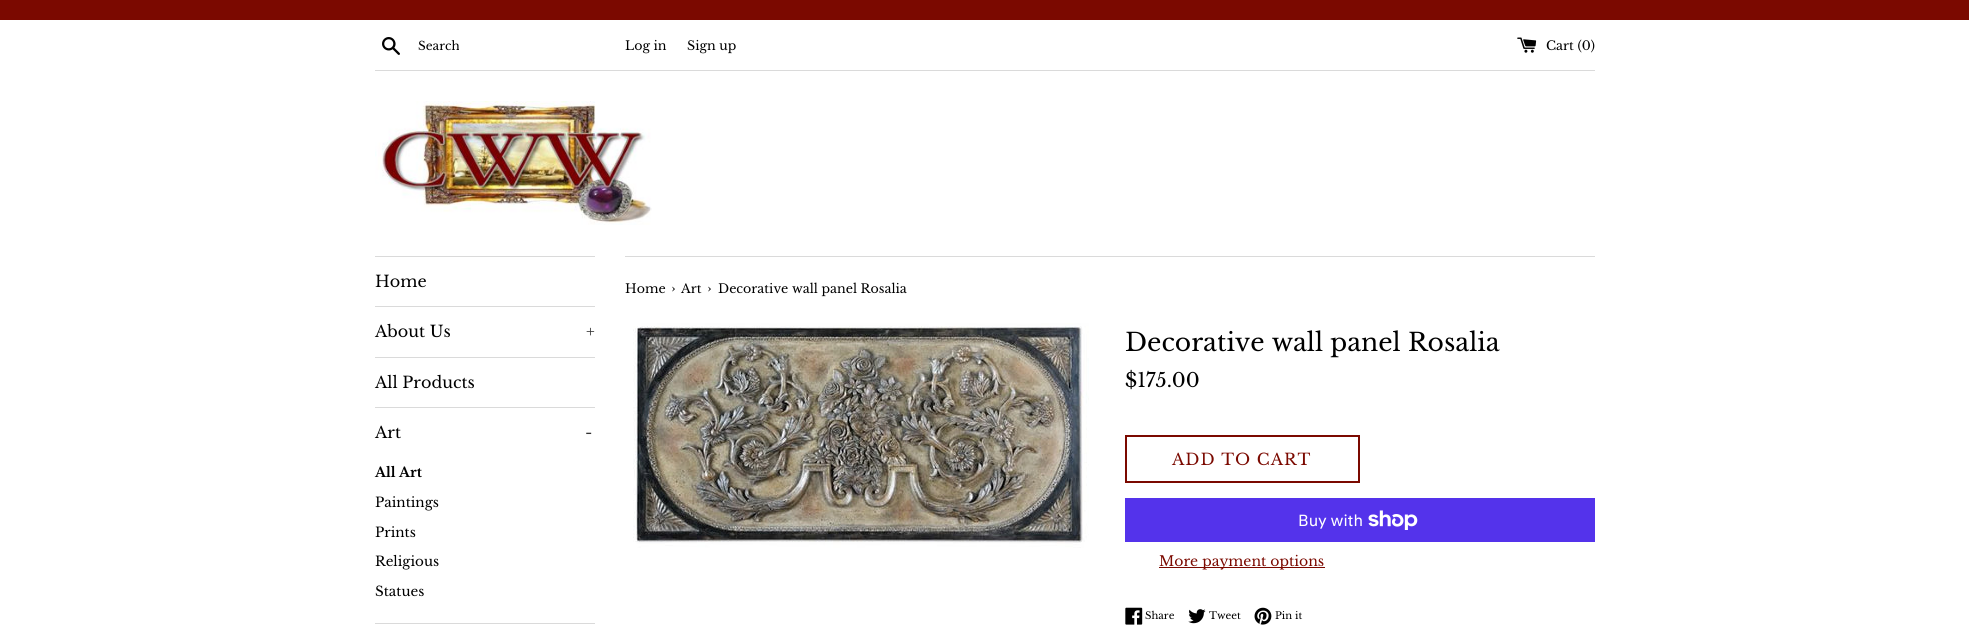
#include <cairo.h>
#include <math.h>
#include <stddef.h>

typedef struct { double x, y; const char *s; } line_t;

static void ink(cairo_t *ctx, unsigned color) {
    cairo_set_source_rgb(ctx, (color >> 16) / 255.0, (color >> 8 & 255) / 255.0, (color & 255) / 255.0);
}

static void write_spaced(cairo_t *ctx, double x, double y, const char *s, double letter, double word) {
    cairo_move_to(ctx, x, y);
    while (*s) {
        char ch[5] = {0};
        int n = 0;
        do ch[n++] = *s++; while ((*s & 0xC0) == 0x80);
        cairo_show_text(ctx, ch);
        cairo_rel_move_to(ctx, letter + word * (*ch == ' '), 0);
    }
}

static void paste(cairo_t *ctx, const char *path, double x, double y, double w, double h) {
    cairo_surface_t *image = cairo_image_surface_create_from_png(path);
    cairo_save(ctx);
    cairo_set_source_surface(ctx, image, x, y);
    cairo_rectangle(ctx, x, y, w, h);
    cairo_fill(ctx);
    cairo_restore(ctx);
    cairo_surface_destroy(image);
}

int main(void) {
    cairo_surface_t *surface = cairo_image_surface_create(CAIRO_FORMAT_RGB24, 1969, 639);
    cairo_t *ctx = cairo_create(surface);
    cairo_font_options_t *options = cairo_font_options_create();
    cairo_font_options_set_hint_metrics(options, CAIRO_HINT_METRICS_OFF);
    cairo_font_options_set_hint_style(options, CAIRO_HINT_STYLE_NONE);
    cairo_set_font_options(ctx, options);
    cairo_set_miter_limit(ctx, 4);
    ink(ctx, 0xFFFFFF);
    cairo_paint(ctx);
    ink(ctx, 0x7B0900);
    cairo_rectangle(ctx, 0, 0, 1969, 20);
    cairo_fill(ctx);
    paste(ctx, "media/1.png", 382, 37, 18, 18);
    cairo_select_font_face(ctx, "Libre Baskerville", CAIRO_FONT_SLANT_NORMAL, CAIRO_FONT_WEIGHT_NORMAL);
    cairo_set_font_size(ctx, 12);
    ink(ctx, 0x000000);
    cairo_move_to(ctx, 418, 50);
    cairo_show_text(ctx, "Search");
    cairo_set_font_size(ctx, 12.6);
    cairo_move_to(ctx, 625, 50);
    cairo_show_text(ctx, "Log in");
    cairo_move_to(ctx, 687, 50);
    cairo_show_text(ctx, "Sign up");
    paste(ctx, "media/2.png", 1517, 37, 20, 16);
    cairo_move_to(ctx, 1546, 50);
    cairo_show_text(ctx, "Cart (0)");
    ink(ctx, 0xDADADA);
    cairo_rectangle(ctx, 375, 70, 1220, 1);
    cairo_fill(ctx);
    paste(ctx, "media/3.png", 375, 101, 277, 124);
    cairo_rectangle(ctx, 375, 256, 220, 1);
    cairo_fill(ctx);
    cairo_rectangle(ctx, 375, 306, 220, 1);
    cairo_fill(ctx);
    cairo_set_font_size(ctx, 16);
    ink(ctx, 0x000000);
    cairo_move_to(ctx, 375, 287);
    cairo_show_text(ctx, "Home");
    ink(ctx, 0xDADADA);
    cairo_rectangle(ctx, 375, 357, 220, 1);
    cairo_fill(ctx);
    ink(ctx, 0x000000);
    cairo_move_to(ctx, 375, 337);
    cairo_show_text(ctx, "About Us");
    ink(ctx, 0x333333);
    cairo_move_to(ctx, 586, 337);
    cairo_show_text(ctx, "+");
    ink(ctx, 0xDADADA);
    cairo_rectangle(ctx, 375, 407, 220, 1);
    cairo_fill(ctx);
    ink(ctx, 0x000000);
    cairo_move_to(ctx, 375, 388);
    cairo_show_text(ctx, "All Products");
    ink(ctx, 0xDADADA);
    cairo_rectangle(ctx, 375, 623, 220, 1);
    cairo_fill(ctx);
    ink(ctx, 0x000000);
    cairo_move_to(ctx, 375, 438);
    cairo_show_text(ctx, "Art");
    ink(ctx, 0x333333);
    cairo_move_to(ctx, 585, 438);
    cairo_show_text(ctx, "-");
    cairo_select_font_face(ctx, "Libre Baskerville", CAIRO_FONT_SLANT_NORMAL, CAIRO_FONT_WEIGHT_BOLD);
    cairo_set_font_size(ctx, 13.5);
    ink(ctx, 0x000000);
    cairo_move_to(ctx, 375, 477);
    cairo_show_text(ctx, "All Art");
    cairo_select_font_face(ctx, "Libre Baskerville", CAIRO_FONT_SLANT_NORMAL, CAIRO_FONT_WEIGHT_NORMAL);
    {
        static const line_t items[] = {
            {375, 507, "Paintings"},
            {375, 537, "Prints"},
            {375, 566, "Religious"},
            {375, 596, "Statues"},
        };
        for (size_t i = 0; i < sizeof items / sizeof *items; i++) {
            cairo_move_to(ctx, items[i].x, items[i].y);
            cairo_show_text(ctx, items[i].s);
        }
    }
    ink(ctx, 0xDADADA);
    cairo_rectangle(ctx, 625, 256, 970, 1);
    cairo_fill(ctx);
    cairo_set_font_size(ctx, 12.6);
    ink(ctx, 0x000000);
    cairo_move_to(ctx, 625, 293);
    cairo_show_text(ctx, "Home");
    cairo_set_font_size(ctx, 15);
    cairo_move_to(ctx, 671, 293);
    cairo_show_text(ctx, "›");
    cairo_set_font_size(ctx, 12.6);
    cairo_move_to(ctx, 681, 293);
    cairo_show_text(ctx, "Art");
    cairo_set_font_size(ctx, 15);
    cairo_move_to(ctx, 707, 293);
    cairo_show_text(ctx, "›");
    cairo_set_font_size(ctx, 12.6);
    cairo_move_to(ctx, 718, 293);
    cairo_show_text(ctx, "Decorative wall panel Rosalia");
    paste(ctx, "media/4.png", 633, 323, 456, 225);
    cairo_set_font_size(ctx, 25);
    cairo_move_to(ctx, 1125, 351);
    cairo_show_text(ctx, "Decorative wall panel Rosalia");
    cairo_set_font_size(ctx, 19.5);
    cairo_move_to(ctx, 1125, 387);
    cairo_show_text(ctx, "$175.00");
    cairo_rectangle(ctx, 1126, 436, 233, 46);
    ink(ctx, 0x7B0900);
    cairo_stroke(ctx);
    cairo_set_font_size(ctx, 16);
    write_spaced(ctx, 1172, 465, "ADD TO CART", 1, 0);
    ink(ctx, 0x5433EB);
    cairo_rectangle(ctx, 1125, 498, 470, 44);
    cairo_fill(ctx);
    cairo_select_font_face(ctx, "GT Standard", CAIRO_FONT_SLANT_NORMAL, CAIRO_FONT_WEIGHT_NORMAL);
    ink(ctx, 0xFFFFFF);
    cairo_move_to(ctx, 1298, 526);
    cairo_show_text(ctx, "Buy with");
    paste(ctx, "media/5.png", 1368, 510, 50, 20);
    ink(ctx, 0x7B0900);
    cairo_rectangle(ctx, 1159, 567, 166, 1);
    cairo_fill(ctx);
    cairo_select_font_face(ctx, "Libre Baskerville", CAIRO_FONT_SLANT_NORMAL, CAIRO_FONT_WEIGHT_NORMAL);
    cairo_set_font_size(ctx, 14);
    cairo_move_to(ctx, 1159, 566);
    cairo_show_text(ctx, "More payment options");
    paste(ctx, "media/6.png", 1125, 607, 18, 18);
    cairo_set_font_size(ctx, 10);
    ink(ctx, 0x000000);
    cairo_move_to(ctx, 1145, 619);
    cairo_show_text(ctx, "Share");
    paste(ctx, "media/7.png", 1188, 609, 18, 15);
    cairo_move_to(ctx, 1209, 619);
    cairo_show_text(ctx, "Tweet");
    paste(ctx, "media/8.png", 1254, 607, 18, 18);
    cairo_move_to(ctx, 1275, 619);
    cairo_show_text(ctx, "Pin it");
    cairo_surface_write_to_png(surface, "image.png");
    cairo_font_options_destroy(options);
    cairo_destroy(ctx);
    cairo_surface_destroy(surface);
    return 0;
}
